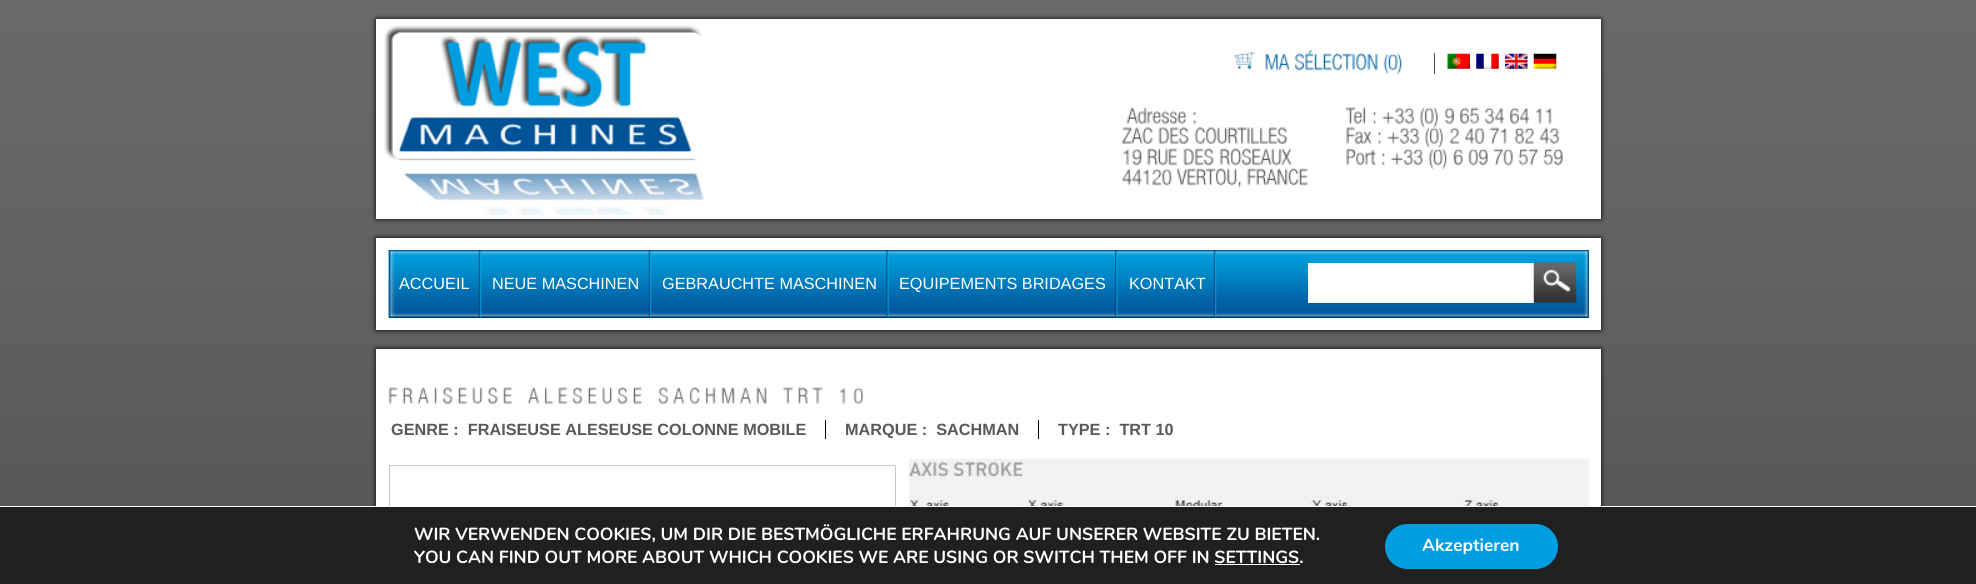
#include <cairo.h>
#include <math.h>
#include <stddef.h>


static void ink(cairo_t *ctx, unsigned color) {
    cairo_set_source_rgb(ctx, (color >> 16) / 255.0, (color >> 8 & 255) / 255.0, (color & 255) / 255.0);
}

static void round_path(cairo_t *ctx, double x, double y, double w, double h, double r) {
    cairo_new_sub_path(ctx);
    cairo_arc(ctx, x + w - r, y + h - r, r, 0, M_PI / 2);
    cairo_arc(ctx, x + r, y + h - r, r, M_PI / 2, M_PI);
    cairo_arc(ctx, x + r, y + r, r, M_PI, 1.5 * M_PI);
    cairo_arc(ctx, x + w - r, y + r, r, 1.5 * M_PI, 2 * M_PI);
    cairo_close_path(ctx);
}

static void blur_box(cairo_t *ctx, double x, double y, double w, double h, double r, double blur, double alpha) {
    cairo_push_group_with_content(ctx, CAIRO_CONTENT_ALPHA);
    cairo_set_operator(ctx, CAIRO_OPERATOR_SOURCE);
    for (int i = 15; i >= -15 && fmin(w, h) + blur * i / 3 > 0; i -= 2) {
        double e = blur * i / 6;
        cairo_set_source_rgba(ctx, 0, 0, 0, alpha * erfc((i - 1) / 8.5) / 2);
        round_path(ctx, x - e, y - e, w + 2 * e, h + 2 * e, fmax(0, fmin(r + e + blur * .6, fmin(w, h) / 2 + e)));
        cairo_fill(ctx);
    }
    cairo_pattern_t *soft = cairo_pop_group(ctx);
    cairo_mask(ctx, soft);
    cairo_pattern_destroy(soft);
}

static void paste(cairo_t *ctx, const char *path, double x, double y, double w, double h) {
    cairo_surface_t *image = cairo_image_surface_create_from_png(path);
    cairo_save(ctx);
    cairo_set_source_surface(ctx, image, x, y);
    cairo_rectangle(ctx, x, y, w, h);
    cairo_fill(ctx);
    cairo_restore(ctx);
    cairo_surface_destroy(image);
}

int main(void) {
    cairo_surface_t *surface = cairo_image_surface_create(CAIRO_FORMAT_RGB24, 1976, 584);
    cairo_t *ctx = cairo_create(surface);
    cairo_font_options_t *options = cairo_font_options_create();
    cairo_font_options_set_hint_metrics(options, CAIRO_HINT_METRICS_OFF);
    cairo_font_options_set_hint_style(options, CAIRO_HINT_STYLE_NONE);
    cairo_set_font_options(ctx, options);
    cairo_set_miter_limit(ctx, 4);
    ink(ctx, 0xFFFFFF);
    cairo_paint(ctx);
    paste(ctx, "media/1.png", 0, 0, 1976, 506);
    ink(ctx, 0x000000);
    blur_box(ctx, 376, 19, 1225, 200, 0, 2.5, 1);
    ink(ctx, 0xFFFFFF);
    cairo_rectangle(ctx, 376, 19, 1225, 200);
    cairo_fill(ctx);
    paste(ctx, "media/2.png", 384, 25, 320, 190);
    paste(ctx, "media/3.png", 1235, 52, 20, 17);
    ink(ctx, 0x525252);
    cairo_rectangle(ctx, 1434, 53, 1, 21);
    cairo_fill(ctx);
    paste(ctx, "media/4.png", 1265, 53, 25, 18);
    paste(ctx, "media/5.png", 1294, 50, 84, 21);
    paste(ctx, "media/6.png", 1383, 53, 19, 21);
    paste(ctx, "media/7.png", 1447, 53, 23, 16);
    paste(ctx, "media/8.png", 1476, 53, 23, 16);
    paste(ctx, "media/9.png", 1505, 53, 23, 16);
    paste(ctx, "media/10.png", 1533, 53, 24, 16);
    paste(ctx, "media/11.png", 1126, 107, 61, 17);
    paste(ctx, "media/12.png", 1193, 112, 4, 12);
    paste(ctx, "media/13.png", 1122, 127, 31, 17);
    paste(ctx, "media/14.png", 1158, 127, 31, 17);
    paste(ctx, "media/15.png", 1194, 127, 94, 17);
    paste(ctx, "media/16.png", 1122, 148, 20, 18);
    paste(ctx, "media/17.png", 1147, 148, 31, 18);
    paste(ctx, "media/18.png", 1183, 148, 31, 18);
    paste(ctx, "media/19.png", 1219, 148, 73, 18);
    paste(ctx, "media/20.png", 1122, 168, 50, 18);
    paste(ctx, "media/21.png", 1176, 168, 66, 20);
    paste(ctx, "media/22.png", 1247, 168, 61, 18);
    paste(ctx, "media/23.png", 1345, 107, 21, 17);
    paste(ctx, "media/12.png", 1373, 112, 4, 12);
    paste(ctx, "media/24.png", 1382, 107, 32, 17);
    paste(ctx, "media/25.png", 1419, 107, 19, 21);
    paste(ctx, "media/26.png", 1444, 107, 10, 17);
    paste(ctx, "media/27.png", 1459, 107, 20, 17);
    paste(ctx, "media/28.png", 1484, 107, 21, 17);
    paste(ctx, "media/29.png", 1509, 107, 21, 17);
    paste(ctx, "media/30.png", 1535, 107, 17, 17);
    paste(ctx, "media/31.png", 1346, 127, 26, 17);
    paste(ctx, "media/12.png", 1378, 132, 4, 12);
    paste(ctx, "media/24.png", 1387, 127, 32, 17);
    paste(ctx, "media/32.png", 1424, 127, 19, 21);
    paste(ctx, "media/33.png", 1449, 127, 10, 17);
    paste(ctx, "media/34.png", 1464, 127, 20, 17);
    paste(ctx, "media/35.png", 1489, 127, 18, 17);
    paste(ctx, "media/36.png", 1514, 127, 20, 17);
    paste(ctx, "media/37.png", 1539, 127, 20, 17);
    paste(ctx, "media/38.png", 1346, 148, 31, 18);
    paste(ctx, "media/39.png", 1382, 153, 3, 13);
    paste(ctx, "media/40.png", 1391, 148, 32, 18);
    paste(ctx, "media/41.png", 1428, 148, 19, 21);
    paste(ctx, "media/42.png", 1453, 148, 10, 18);
    paste(ctx, "media/43.png", 1468, 148, 20, 18);
    paste(ctx, "media/44.png", 1493, 148, 20, 18);
    paste(ctx, "media/45.png", 1518, 148, 20, 18);
    paste(ctx, "media/46.png", 1543, 148, 20, 18);
    ink(ctx, 0x000000);
    blur_box(ctx, 376, 238, 1225, 92, 0, 2.5, 1);
    ink(ctx, 0xFFFFFF);
    cairo_rectangle(ctx, 376, 238, 1225, 92);
    cairo_fill(ctx);
    ink(ctx, 0x000000);
    cairo_rectangle(ctx, 389, 250, 1200, 68);
    cairo_fill(ctx);
    paste(ctx, "media/47.png", 388, 250, 1201, 68);
    paste(ctx, "media/48.png", 388, 250, 9, 68);
    paste(ctx, "media/49.png", 478, 250, 4, 68);
    cairo_select_font_face(ctx, "Liberation Sans", CAIRO_FONT_SLANT_NORMAL, CAIRO_FONT_WEIGHT_NORMAL);
    cairo_set_font_size(ctx, 16.25);
    ink(ctx, 0xFFFFFF);
    cairo_move_to(ctx, 399, 289);
    cairo_show_text(ctx, "ACCUEIL");
    paste(ctx, "media/49.png", 648, 250, 4, 68);
    cairo_move_to(ctx, 492, 289);
    cairo_show_text(ctx, "NEUE MASCHINEN");
    paste(ctx, "media/50.png", 886, 250, 3, 68);
    cairo_move_to(ctx, 662, 289);
    cairo_show_text(ctx, "GEBRAUCHTE MASCHINEN");
    paste(ctx, "media/51.png", 1115, 250, 3, 68);
    cairo_move_to(ctx, 899, 289);
    cairo_show_text(ctx, "EQUIPEMENTS BRIDAGES");
    paste(ctx, "media/49.png", 1213, 250, 4, 68);
    cairo_move_to(ctx, 1129, 289);
    cairo_show_text(ctx, "KONTAKT");
    paste(ctx, "media/52.png", 1581, 250, 8, 68);
    cairo_rectangle(ctx, 1308, 263, 226, 40);
    cairo_fill(ctx);
    paste(ctx, "media/53.png", 1533, 262, 44, 41);
    ink(ctx, 0x000000);
    blur_box(ctx, 376, 349, 1225, 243, 0, 2.5, 1);
    ink(ctx, 0xFFFFFF);
    cairo_rectangle(ctx, 376, 349, 1225, 157);
    cairo_fill(ctx);
    paste(ctx, "media/54.png", 388, 387, 125, 17);
    paste(ctx, "media/55.png", 527, 387, 115, 17);
    paste(ctx, "media/56.png", 658, 387, 109, 17);
    paste(ctx, "media/57.png", 782, 387, 41, 17);
    paste(ctx, "media/58.png", 839, 387, 25, 17);
    ink(ctx, 0x000000);
    cairo_rectangle(ctx, 825, 420, 1, 19);
    cairo_fill(ctx);
    cairo_select_font_face(ctx, "Liberation Sans", CAIRO_FONT_SLANT_NORMAL, CAIRO_FONT_WEIGHT_BOLD);
    ink(ctx, 0x595959);
    cairo_move_to(ctx, 391, 435);
    cairo_show_text(ctx, "GENRE :  FRAISEUSE ALESEUSE COLONNE MOBILE");
    ink(ctx, 0x000000);
    cairo_rectangle(ctx, 1038, 420, 1, 19);
    cairo_fill(ctx);
    ink(ctx, 0x595959);
    cairo_move_to(ctx, 845, 435);
    cairo_show_text(ctx, "MARQUE :  SACHMAN");
    cairo_move_to(ctx, 1058, 435);
    cairo_show_text(ctx, "TYPE :  TRT 10");
    cairo_rectangle(ctx, 389.5, 465.5, 506, 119);
    ink(ctx, 0xC8C6C6);
    cairo_set_line_width(ctx, 1);
    cairo_stroke(ctx);
    paste(ctx, "media/59.png", 908, 458, 681, 48);
    ink(ctx, 0x202020);
    cairo_rectangle(ctx, 0, 507, 1976, 77);
    cairo_fill(ctx);
    ink(ctx, 0xFFFFFF);
    cairo_rectangle(ctx, 370, 506, 1237, 1);
    cairo_fill(ctx);
    cairo_select_font_face(ctx, "Nunito", CAIRO_FONT_SLANT_NORMAL, CAIRO_FONT_WEIGHT_BOLD);
    cairo_set_font_size(ctx, 17.5);
    cairo_move_to(ctx, 414, 540);
    cairo_show_text(ctx, "WIR VERWENDEN COOKIES, UM DIR DIE BESTMÖGLICHE ERFAHRUNG AUF UNSERER WEBSITE ZU BIETEN.");
    cairo_move_to(ctx, 414, 563);
    cairo_show_text(ctx, "YOU CAN FIND OUT MORE ABOUT WHICH COOKIES WE ARE USING OR SWITCH THEM OFF IN SETTINGS.");
    cairo_rectangle(ctx, 1215, 564, 85, 1);
    cairo_fill(ctx);
    ink(ctx, 0x009DE0);
    round_path(ctx, 1385, 524, 173, 45, 22.5);
    cairo_fill(ctx);
    ink(ctx, 0xFFFFFF);
    cairo_move_to(ctx, 1422, 551);
    cairo_show_text(ctx, "Akzeptieren");
    cairo_surface_write_to_png(surface, "image.png");
    cairo_font_options_destroy(options);
    cairo_destroy(ctx);
    cairo_surface_destroy(surface);
    return 0;
}
